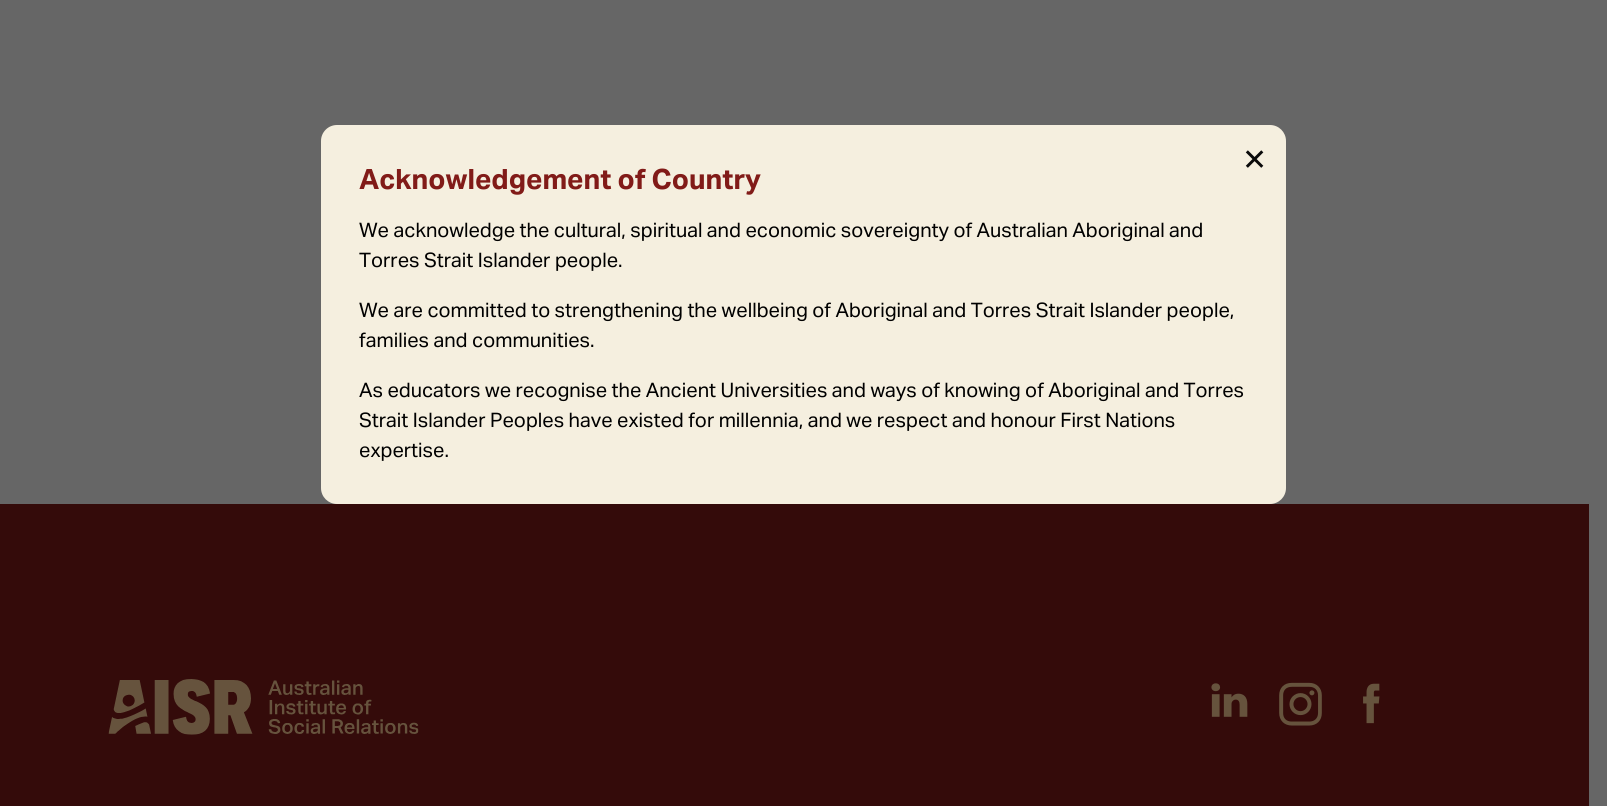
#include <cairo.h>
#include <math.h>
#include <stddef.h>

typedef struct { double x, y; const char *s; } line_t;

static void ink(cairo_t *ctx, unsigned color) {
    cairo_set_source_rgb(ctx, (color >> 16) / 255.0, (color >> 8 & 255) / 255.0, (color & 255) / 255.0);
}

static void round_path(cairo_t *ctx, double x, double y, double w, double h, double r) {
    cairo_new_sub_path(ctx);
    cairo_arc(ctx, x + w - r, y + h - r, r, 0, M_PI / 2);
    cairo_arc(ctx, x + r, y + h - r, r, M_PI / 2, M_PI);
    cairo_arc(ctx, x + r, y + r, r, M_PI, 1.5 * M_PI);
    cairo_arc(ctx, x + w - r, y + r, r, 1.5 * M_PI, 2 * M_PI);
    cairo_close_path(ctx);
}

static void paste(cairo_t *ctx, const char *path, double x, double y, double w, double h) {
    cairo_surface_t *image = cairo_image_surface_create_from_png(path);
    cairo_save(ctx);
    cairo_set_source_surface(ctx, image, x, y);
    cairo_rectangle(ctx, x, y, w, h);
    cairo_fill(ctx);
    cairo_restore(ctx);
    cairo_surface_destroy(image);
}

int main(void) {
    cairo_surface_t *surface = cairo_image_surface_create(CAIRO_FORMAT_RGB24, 1607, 806);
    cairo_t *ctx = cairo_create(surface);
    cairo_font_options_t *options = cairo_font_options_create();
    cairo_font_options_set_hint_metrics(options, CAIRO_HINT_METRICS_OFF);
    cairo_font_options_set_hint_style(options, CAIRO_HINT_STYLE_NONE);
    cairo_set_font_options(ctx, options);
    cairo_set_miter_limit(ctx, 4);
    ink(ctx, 0x666666);
    cairo_paint(ctx);
    ink(ctx, 0xF5EFDF);
    round_path(ctx, 321, 125, 965, 379, 16);
    cairo_fill(ctx);
    cairo_select_font_face(ctx, "DejaVu Sans", CAIRO_FONT_SLANT_NORMAL, CAIRO_FONT_WEIGHT_NORMAL);
    cairo_set_font_size(ctx, 30);
    ink(ctx, 0x0A0A0A);
    cairo_move_to(ctx, 1242, 170);
    cairo_show_text(ctx, "✕");
    cairo_select_font_face(ctx, "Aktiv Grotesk", CAIRO_FONT_SLANT_NORMAL, CAIRO_FONT_WEIGHT_BOLD);
    cairo_set_font_size(ctx, 28);
    ink(ctx, 0x811B18);
    cairo_move_to(ctx, 359, 189);
    cairo_show_text(ctx, "Acknowledgement of Country");
    cairo_select_font_face(ctx, "Aktiv Grotesk", CAIRO_FONT_SLANT_NORMAL, CAIRO_FONT_WEIGHT_NORMAL);
    cairo_set_font_size(ctx, 20);
    ink(ctx, 0x000000);
    {
        static const line_t items[] = {
            {359, 237, "We acknowledge the cultural, spiritual and economic sovereignty of Australian Aboriginal and"},
            {359, 267, "Torres Strait Islander people."},
            {359, 317, "We are committed to strengthening the wellbeing of Aboriginal and Torres Strait Islander people,"},
            {359, 347, "families and communities."},
            {359, 397, "As educators we recognise the Ancient Universities and ways of knowing of Aboriginal and Torres"},
            {359, 427, "Strait Islander Peoples have existed for millennia, and we respect and honour First Nations"},
            {359, 457, "expertise."},
        };
        for (size_t i = 0; i < sizeof items / sizeof *items; i++) {
            cairo_move_to(ctx, items[i].x, items[i].y);
            cairo_show_text(ctx, items[i].s);
        }
    }
    ink(ctx, 0x340B0A);
    cairo_rectangle(ctx, 0, 504, 1589, 302);
    cairo_fill(ctx);
    paste(ctx, "media/1.png", 108, 679, 311, 56);
    paste(ctx, "media/2.png", 1211, 683, 37, 34);
    paste(ctx, "media/3.png", 1279, 682, 43, 44);
    paste(ctx, "media/4.png", 1363, 683, 17, 41);
    cairo_surface_write_to_png(surface, "image.png");
    cairo_font_options_destroy(options);
    cairo_destroy(ctx);
    cairo_surface_destroy(surface);
    return 0;
}
